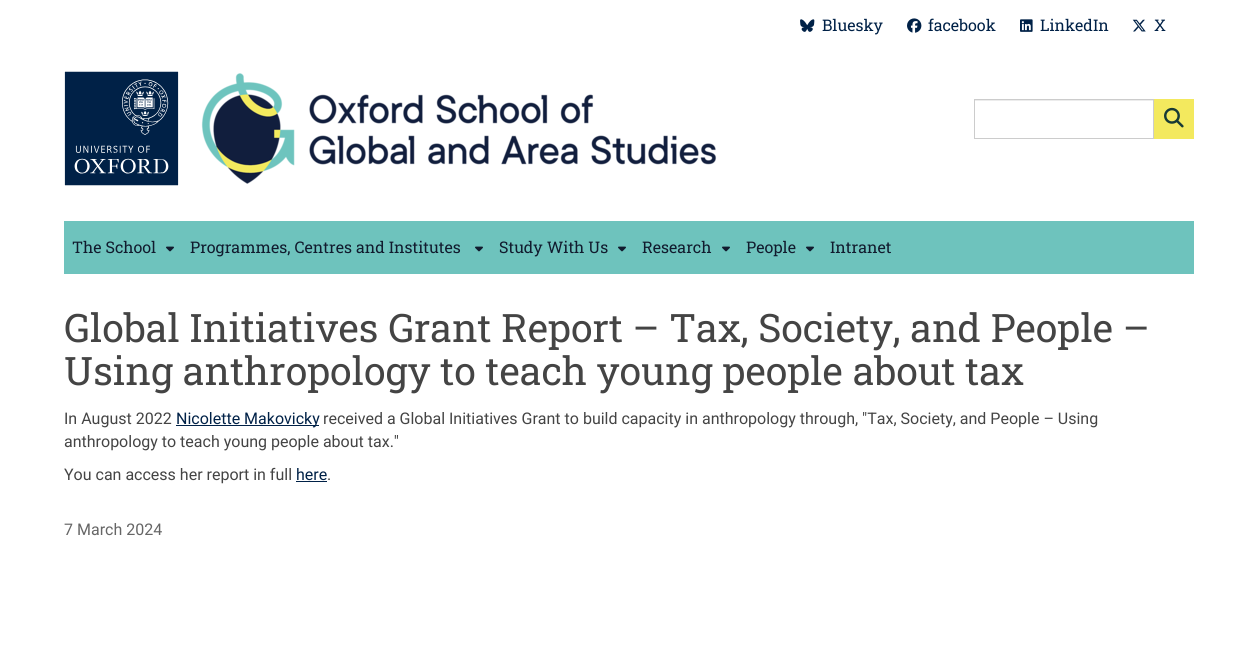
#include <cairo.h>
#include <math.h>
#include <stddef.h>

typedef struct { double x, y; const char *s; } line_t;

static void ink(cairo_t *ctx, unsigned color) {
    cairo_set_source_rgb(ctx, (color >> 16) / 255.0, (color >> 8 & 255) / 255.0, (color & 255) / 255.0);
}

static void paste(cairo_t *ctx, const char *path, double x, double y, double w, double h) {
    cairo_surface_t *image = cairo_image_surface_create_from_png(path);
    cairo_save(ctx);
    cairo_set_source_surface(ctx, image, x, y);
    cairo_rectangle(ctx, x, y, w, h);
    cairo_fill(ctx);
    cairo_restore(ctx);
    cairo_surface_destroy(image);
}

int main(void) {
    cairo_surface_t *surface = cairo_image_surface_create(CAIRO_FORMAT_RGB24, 1258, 652);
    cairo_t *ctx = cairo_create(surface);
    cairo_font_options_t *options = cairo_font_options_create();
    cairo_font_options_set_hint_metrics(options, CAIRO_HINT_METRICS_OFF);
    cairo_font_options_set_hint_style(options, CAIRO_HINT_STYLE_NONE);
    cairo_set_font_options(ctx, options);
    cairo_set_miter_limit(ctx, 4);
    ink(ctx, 0xFFFFFF);
    cairo_paint(ctx);
    paste(ctx, "media/1.png", 800, 19, 15, 13);
    cairo_select_font_face(ctx, "Roboto Slab", CAIRO_FONT_SLANT_NORMAL, CAIRO_FONT_WEIGHT_NORMAL);
    cairo_set_font_size(ctx, 16);
    ink(ctx, 0x002147);
    cairo_move_to(ctx, 822, 31);
    cairo_show_text(ctx, "Bluesky");
    paste(ctx, "media/2.png", 907, 18, 15, 15);
    cairo_move_to(ctx, 928, 31);
    cairo_show_text(ctx, "facebook");
    paste(ctx, "media/3.png", 1020, 19, 13, 13);
    cairo_move_to(ctx, 1040, 31);
    cairo_show_text(ctx, "LinkedIn");
    paste(ctx, "media/4.png", 1132, 19, 14, 13);
    cairo_move_to(ctx, 1154, 31);
    cairo_show_text(ctx, "X");
    paste(ctx, "media/5.png", 64, 71, 115, 115);
    paste(ctx, "media/6.png", 201, 73, 516, 111);
    ink(ctx, 0xECECEC);
    cairo_rectangle(ctx, 975, 100, 178, 1);
    cairo_fill(ctx);
    cairo_rectangle(ctx, 974.5, 99.5, 179, 39);
    ink(ctx, 0xCCCCCC);
    cairo_set_line_width(ctx, 1);
    cairo_stroke(ctx);
    ink(ctx, 0xF3E95E);
    cairo_rectangle(ctx, 1154, 99, 40, 40);
    cairo_fill(ctx);
    paste(ctx, "media/7.png", 1164, 107, 20, 21);
    ink(ctx, 0x6EC3BD);
    cairo_rectangle(ctx, 64, 221, 1130, 53);
    cairo_fill(ctx);
    ink(ctx, 0x111B2E);
    cairo_move_to(ctx, 72, 253);
    cairo_show_text(ctx, "The School");
    paste(ctx, "media/8.png", 166, 246, 8, 6);
    cairo_move_to(ctx, 190, 253);
    cairo_show_text(ctx, "Programmes, Centres and Institutes");
    paste(ctx, "media/8.png", 475, 246, 8, 6);
    cairo_move_to(ctx, 499, 253);
    cairo_show_text(ctx, "Study With Us");
    paste(ctx, "media/8.png", 618, 246, 8, 6);
    cairo_move_to(ctx, 642, 253);
    cairo_show_text(ctx, "Research");
    paste(ctx, "media/8.png", 722, 246, 8, 6);
    cairo_move_to(ctx, 746, 253);
    cairo_show_text(ctx, "People");
    paste(ctx, "media/8.png", 806, 246, 8, 6);
    cairo_move_to(ctx, 830, 253);
    cairo_show_text(ctx, "Intranet");
    cairo_set_font_size(ctx, 39.2);
    ink(ctx, 0x444444);
    cairo_move_to(ctx, 64, 342);
    cairo_show_text(ctx, "Global Initiatives Grant Report – Tax, Society, and People –");
    cairo_move_to(ctx, 64, 385);
    cairo_show_text(ctx, "Using anthropology to teach young people about tax");
    cairo_select_font_face(ctx, "Roboto", CAIRO_FONT_SLANT_NORMAL, CAIRO_FONT_WEIGHT_NORMAL);
    cairo_set_font_size(ctx, 16);
    cairo_move_to(ctx, 64, 424);
    cairo_show_text(ctx, "In August 2022");
    ink(ctx, 0x002147);
    cairo_rectangle(ctx, 176, 425, 143, 1);
    cairo_fill(ctx);
    cairo_move_to(ctx, 176, 424);
    cairo_show_text(ctx, "Nicolette Makovicky");
    ink(ctx, 0x444444);
    {
        static const line_t items[] = {
            {323, 424, "received a Global Initiatives Grant to build capacity in anthropology through, \"Tax, Society, and People – Using"},
            {64, 447, "anthropology to teach young people about tax.\""},
            {64, 480, "You can access her report in full"},
        };
        for (size_t i = 0; i < sizeof items / sizeof *items; i++) {
            cairo_move_to(ctx, items[i].x, items[i].y);
            cairo_show_text(ctx, items[i].s);
        }
    }
    ink(ctx, 0x002147);
    cairo_move_to(ctx, 296, 480);
    cairo_show_text(ctx, "here");
    cairo_rectangle(ctx, 296, 481, 31, 1);
    cairo_fill(ctx);
    ink(ctx, 0x444444);
    cairo_move_to(ctx, 327, 480);
    cairo_show_text(ctx, ".");
    ink(ctx, 0x666666);
    cairo_move_to(ctx, 64, 535);
    cairo_show_text(ctx, "7 March 2024");
    cairo_surface_write_to_png(surface, "image.png");
    cairo_font_options_destroy(options);
    cairo_destroy(ctx);
    cairo_surface_destroy(surface);
    return 0;
}
